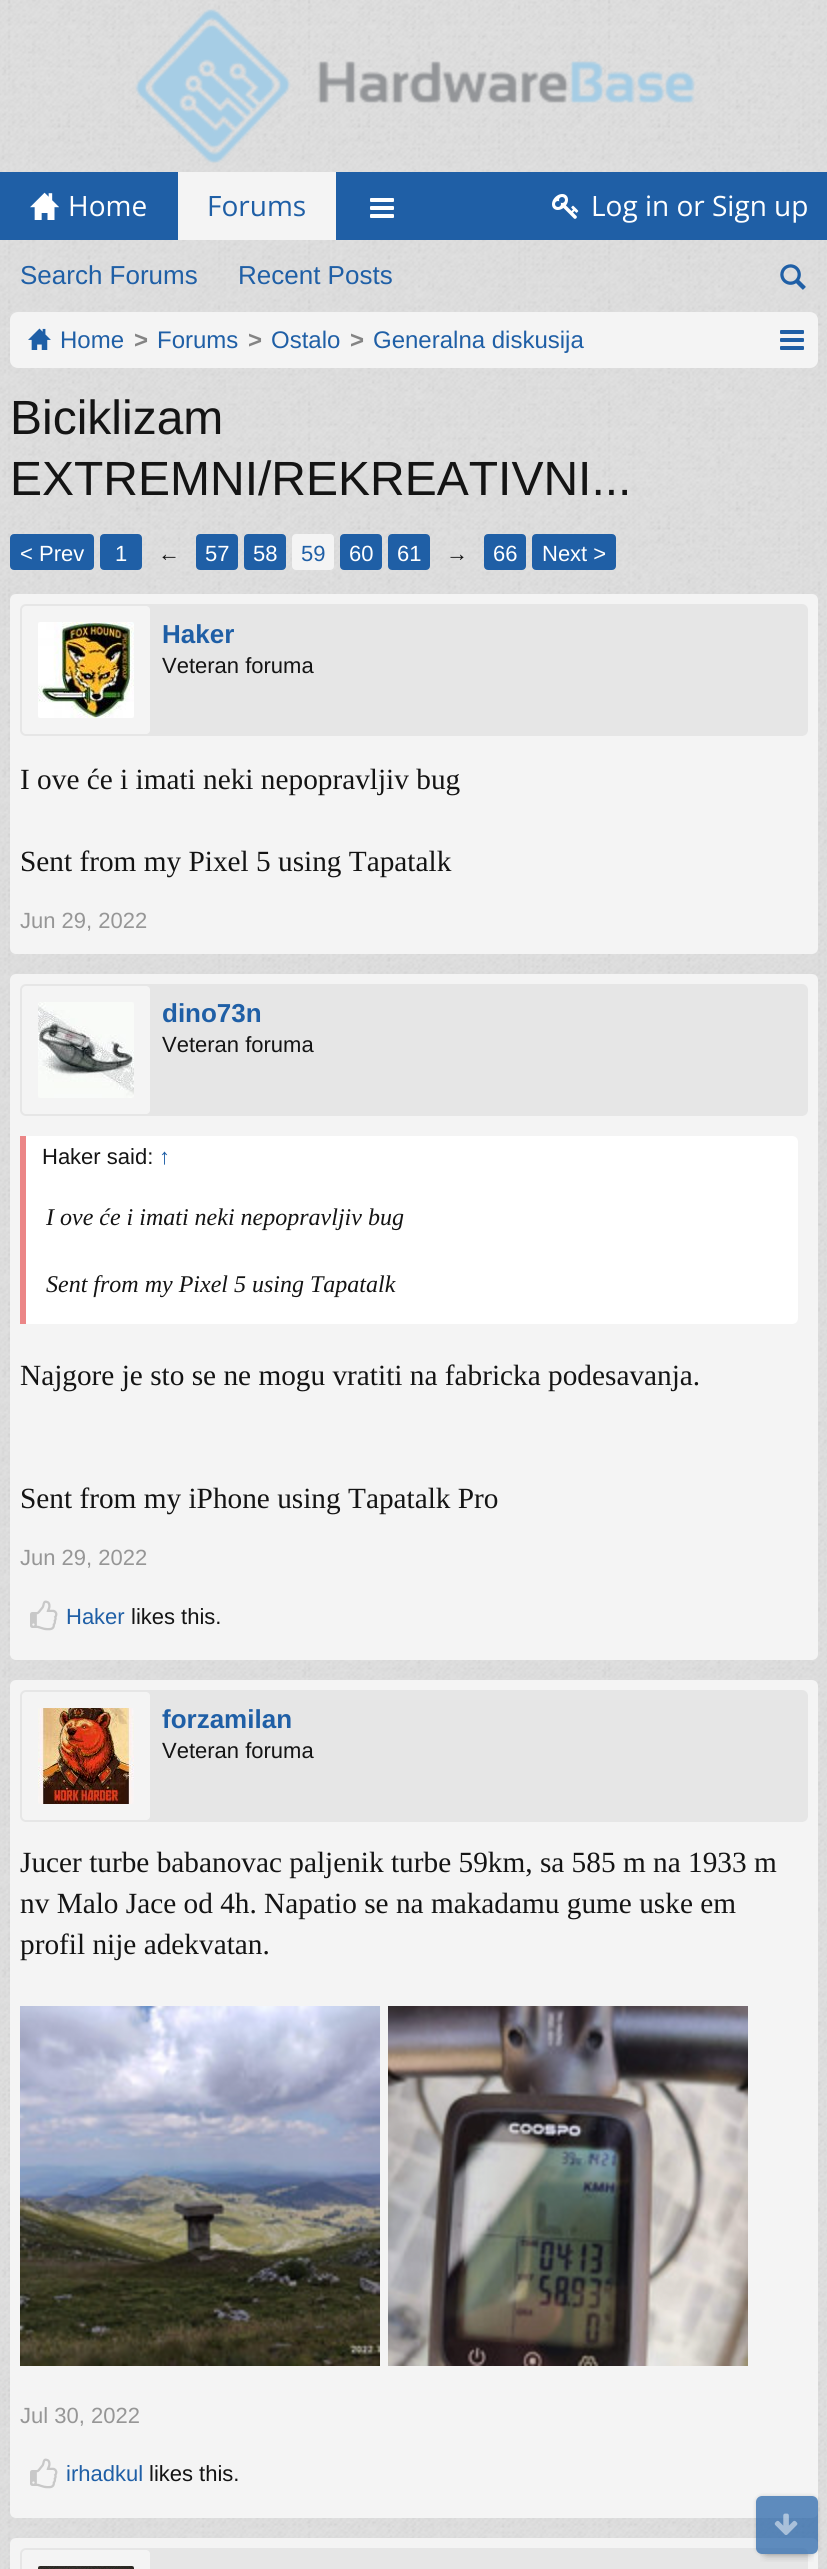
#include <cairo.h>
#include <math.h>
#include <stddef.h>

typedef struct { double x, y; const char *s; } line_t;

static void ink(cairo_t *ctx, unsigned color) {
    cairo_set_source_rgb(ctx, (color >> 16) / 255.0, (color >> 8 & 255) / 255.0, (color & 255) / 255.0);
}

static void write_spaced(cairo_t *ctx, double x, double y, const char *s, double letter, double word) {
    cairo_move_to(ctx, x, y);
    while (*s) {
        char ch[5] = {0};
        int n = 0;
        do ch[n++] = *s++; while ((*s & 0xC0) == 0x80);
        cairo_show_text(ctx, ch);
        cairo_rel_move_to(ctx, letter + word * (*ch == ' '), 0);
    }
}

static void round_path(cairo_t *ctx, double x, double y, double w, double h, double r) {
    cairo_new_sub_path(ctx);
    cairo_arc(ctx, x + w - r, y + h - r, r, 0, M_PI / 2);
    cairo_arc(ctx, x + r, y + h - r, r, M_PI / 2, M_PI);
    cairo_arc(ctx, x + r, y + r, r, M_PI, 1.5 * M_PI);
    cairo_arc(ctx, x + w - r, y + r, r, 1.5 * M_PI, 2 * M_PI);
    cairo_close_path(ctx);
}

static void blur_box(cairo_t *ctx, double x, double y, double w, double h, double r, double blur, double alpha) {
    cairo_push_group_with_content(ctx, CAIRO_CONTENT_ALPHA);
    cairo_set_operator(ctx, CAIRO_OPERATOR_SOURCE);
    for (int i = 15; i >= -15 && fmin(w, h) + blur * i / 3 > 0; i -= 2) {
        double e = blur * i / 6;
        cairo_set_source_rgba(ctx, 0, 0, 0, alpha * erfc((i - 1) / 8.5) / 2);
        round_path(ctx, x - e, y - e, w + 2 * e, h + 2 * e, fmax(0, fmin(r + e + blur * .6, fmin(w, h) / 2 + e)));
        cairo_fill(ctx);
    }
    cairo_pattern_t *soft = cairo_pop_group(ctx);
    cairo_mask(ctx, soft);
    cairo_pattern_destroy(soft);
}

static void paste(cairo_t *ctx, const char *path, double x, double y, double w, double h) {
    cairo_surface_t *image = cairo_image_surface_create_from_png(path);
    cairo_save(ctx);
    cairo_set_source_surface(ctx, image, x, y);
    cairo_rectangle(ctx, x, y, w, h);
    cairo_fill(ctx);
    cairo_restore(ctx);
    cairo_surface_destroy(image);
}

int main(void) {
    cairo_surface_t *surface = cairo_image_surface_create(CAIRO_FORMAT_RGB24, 827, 2569);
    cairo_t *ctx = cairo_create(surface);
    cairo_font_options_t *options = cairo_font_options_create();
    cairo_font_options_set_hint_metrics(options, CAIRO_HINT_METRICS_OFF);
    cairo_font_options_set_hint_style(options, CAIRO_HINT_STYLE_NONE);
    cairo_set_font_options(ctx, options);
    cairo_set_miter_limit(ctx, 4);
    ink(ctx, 0xE0E0E0);
    cairo_paint(ctx);
    paste(ctx, "media/1.png", 0, 0, 827, 312);
    paste(ctx, "media/2.png", 135, 9, 560, 154);
    ink(ctx, 0x1F5FA6);
    cairo_rectangle(ctx, 0, 172, 827, 68);
    cairo_fill(ctx);
    ink(ctx, 0xF4F4F4);
    cairo_rectangle(ctx, 178, 172, 158, 68);
    cairo_fill(ctx);
    cairo_select_font_face(ctx, "Open Sans", CAIRO_FONT_SLANT_NORMAL, CAIRO_FONT_WEIGHT_NORMAL);
    cairo_set_font_size(ctx, 28);
    ink(ctx, 0x1F5FA6);
    cairo_move_to(ctx, 207, 216);
    cairo_show_text(ctx, "Forums");
    cairo_select_font_face(ctx, "Liberation Sans", CAIRO_FONT_SLANT_NORMAL, CAIRO_FONT_WEIGHT_NORMAL);
    cairo_set_font_size(ctx, 26);
    cairo_move_to(ctx, 20, 284);
    cairo_show_text(ctx, "Search Forums");
    cairo_move_to(ctx, 238, 284);
    cairo_show_text(ctx, "Recent Posts");
    paste(ctx, "media/3.png", 30, 192, 29, 28);
    cairo_select_font_face(ctx, "Open Sans", CAIRO_FONT_SLANT_NORMAL, CAIRO_FONT_WEIGHT_NORMAL);
    cairo_set_font_size(ctx, 28);
    ink(ctx, 0xFFFFFF);
    cairo_move_to(ctx, 68, 216);
    cairo_show_text(ctx, "Home");
    paste(ctx, "media/4.png", 370, 198, 24, 20);
    paste(ctx, "media/5.png", 552, 194, 27, 25);
    cairo_move_to(ctx, 591, 216);
    cairo_show_text(ctx, "Log in or Sign up");
    paste(ctx, "media/6.png", 780, 264, 26, 26);
    paste(ctx, "media/7.png", 0, 312, 827, 2257);
    ink(ctx, 0xF4F4F4);
    round_path(ctx, 11, 313, 806, 54, 7);
    cairo_fill_preserve(ctx);
    cairo_stroke(ctx);
    paste(ctx, "media/8.png", 28, 328, 23, 22);
    cairo_select_font_face(ctx, "Liberation Sans", CAIRO_FONT_SLANT_NORMAL, CAIRO_FONT_WEIGHT_NORMAL);
    cairo_set_font_size(ctx, 24);
    ink(ctx, 0x1F5FA6);
    cairo_move_to(ctx, 60, 348);
    cairo_show_text(ctx, "Home");
    cairo_select_font_face(ctx, "Liberation Sans", CAIRO_FONT_SLANT_NORMAL, CAIRO_FONT_WEIGHT_BOLD);
    ink(ctx, 0x848484);
    write_spaced(ctx, 134, 348, ">", -4, 0);
    cairo_select_font_face(ctx, "Liberation Sans", CAIRO_FONT_SLANT_NORMAL, CAIRO_FONT_WEIGHT_NORMAL);
    ink(ctx, 0x1F5FA6);
    cairo_move_to(ctx, 157, 348);
    cairo_show_text(ctx, "Forums");
    cairo_select_font_face(ctx, "Liberation Sans", CAIRO_FONT_SLANT_NORMAL, CAIRO_FONT_WEIGHT_BOLD);
    ink(ctx, 0x848484);
    write_spaced(ctx, 248, 348, ">", -4, 0);
    cairo_select_font_face(ctx, "Liberation Sans", CAIRO_FONT_SLANT_NORMAL, CAIRO_FONT_WEIGHT_NORMAL);
    ink(ctx, 0x1F5FA6);
    cairo_move_to(ctx, 271, 348);
    cairo_show_text(ctx, "Ostalo");
    cairo_select_font_face(ctx, "Liberation Sans", CAIRO_FONT_SLANT_NORMAL, CAIRO_FONT_WEIGHT_BOLD);
    ink(ctx, 0x848484);
    write_spaced(ctx, 350, 348, ">", -4, 0);
    cairo_select_font_face(ctx, "Liberation Sans", CAIRO_FONT_SLANT_NORMAL, CAIRO_FONT_WEIGHT_NORMAL);
    ink(ctx, 0x1F5FA6);
    cairo_move_to(ctx, 373, 348);
    cairo_show_text(ctx, "Generalna diskusija");
    paste(ctx, "media/9.png", 780, 330, 24, 20);
    cairo_set_font_size(ctx, 48);
    ink(ctx, 0x141414);
    cairo_move_to(ctx, 10, 434);
    cairo_show_text(ctx, "Biciklizam");
    cairo_move_to(ctx, 10, 495);
    cairo_show_text(ctx, "EXTREMNI/REKREATIVNI...");
    ink(ctx, 0x1F5FA6);
    round_path(ctx, 11, 535, 82, 34, 3);
    cairo_fill_preserve(ctx);
    cairo_stroke(ctx);
    cairo_set_font_size(ctx, 22);
    ink(ctx, 0xFFFFFF);
    cairo_move_to(ctx, 20, 561);
    cairo_show_text(ctx, "< Prev");
    ink(ctx, 0x1F5FA6);
    round_path(ctx, 101, 535, 40, 34, 3);
    cairo_fill_preserve(ctx);
    cairo_stroke(ctx);
    ink(ctx, 0xFFFFFF);
    cairo_move_to(ctx, 115, 561);
    cairo_show_text(ctx, "1");
    ink(ctx, 0x141414);
    cairo_move_to(ctx, 158, 561);
    cairo_show_text(ctx, "←");
    ink(ctx, 0x1F5FA6);
    round_path(ctx, 197, 535, 40, 34, 3);
    cairo_fill_preserve(ctx);
    cairo_stroke(ctx);
    ink(ctx, 0xFFFFFF);
    cairo_move_to(ctx, 205, 561);
    cairo_show_text(ctx, "57");
    ink(ctx, 0x1F5FA6);
    round_path(ctx, 245, 535, 40, 34, 3);
    cairo_fill_preserve(ctx);
    cairo_stroke(ctx);
    ink(ctx, 0xFFFFFF);
    cairo_move_to(ctx, 253, 561);
    cairo_show_text(ctx, "58");
    ink(ctx, 0xF4F4F4);
    round_path(ctx, 293, 535, 40, 34, 3);
    cairo_fill_preserve(ctx);
    cairo_stroke(ctx);
    ink(ctx, 0x1F5FA6);
    cairo_move_to(ctx, 301, 561);
    cairo_show_text(ctx, "59");
    round_path(ctx, 341, 535, 40, 34, 3);
    cairo_fill_preserve(ctx);
    cairo_stroke(ctx);
    ink(ctx, 0xFFFFFF);
    cairo_move_to(ctx, 349, 561);
    cairo_show_text(ctx, "60");
    ink(ctx, 0x1F5FA6);
    round_path(ctx, 389, 535, 40, 34, 3);
    cairo_fill_preserve(ctx);
    cairo_stroke(ctx);
    ink(ctx, 0xFFFFFF);
    cairo_move_to(ctx, 397, 561);
    cairo_show_text(ctx, "61");
    ink(ctx, 0x141414);
    cairo_move_to(ctx, 446, 561);
    cairo_show_text(ctx, "→");
    ink(ctx, 0x1F5FA6);
    round_path(ctx, 485, 535, 40, 34, 3);
    cairo_fill_preserve(ctx);
    cairo_stroke(ctx);
    ink(ctx, 0xFFFFFF);
    cairo_move_to(ctx, 493, 561);
    cairo_show_text(ctx, "66");
    ink(ctx, 0x1F5FA6);
    round_path(ctx, 533, 535, 82, 34, 3);
    cairo_fill_preserve(ctx);
    cairo_stroke(ctx);
    ink(ctx, 0xFFFFFF);
    cairo_move_to(ctx, 542, 561);
    cairo_show_text(ctx, "Next >");
    ink(ctx, 0xF4F4F4);
    round_path(ctx, 10, 594, 808, 360, 6);
    cairo_fill(ctx);
    ink(ctx, 0xE6E6E6);
    round_path(ctx, 21, 605, 786, 130, 5);
    cairo_fill_preserve(ctx);
    cairo_stroke(ctx);
    ink(ctx, 0xF4F4F4);
    round_path(ctx, 22, 606, 128, 128, 4);
    cairo_fill(ctx);
    paste(ctx, "media/10.png", 38, 622, 96, 96);
    cairo_select_font_face(ctx, "Liberation Sans", CAIRO_FONT_SLANT_NORMAL, CAIRO_FONT_WEIGHT_BOLD);
    cairo_set_font_size(ctx, 26);
    ink(ctx, 0x1F5FA6);
    cairo_move_to(ctx, 162, 643);
    cairo_show_text(ctx, "Haker");
    cairo_select_font_face(ctx, "Liberation Sans", CAIRO_FONT_SLANT_NORMAL, CAIRO_FONT_WEIGHT_NORMAL);
    cairo_set_font_size(ctx, 22);
    ink(ctx, 0x141414);
    cairo_move_to(ctx, 162, 673);
    cairo_show_text(ctx, "Veteran foruma");
    cairo_select_font_face(ctx, "Liberation Serif", CAIRO_FONT_SLANT_NORMAL, CAIRO_FONT_WEIGHT_NORMAL);
    cairo_set_font_size(ctx, 29.3);
    cairo_move_to(ctx, 20, 789);
    cairo_show_text(ctx, "I ove će i imati neki nepopravljiv bug");
    cairo_move_to(ctx, 20, 871);
    cairo_show_text(ctx, "Sent from my Pixel 5 using Tapatalk");
    cairo_select_font_face(ctx, "Liberation Sans", CAIRO_FONT_SLANT_NORMAL, CAIRO_FONT_WEIGHT_NORMAL);
    cairo_set_font_size(ctx, 22);
    ink(ctx, 0x969696);
    cairo_move_to(ctx, 20, 928);
    cairo_show_text(ctx, "Jun 29, 2022");
    ink(ctx, 0xF4F4F4);
    round_path(ctx, 10, 974, 808, 686, 6);
    cairo_fill(ctx);
    ink(ctx, 0xE6E6E6);
    round_path(ctx, 21, 985, 786, 130, 5);
    cairo_fill_preserve(ctx);
    cairo_stroke(ctx);
    ink(ctx, 0xF4F4F4);
    round_path(ctx, 22, 986, 128, 128, 4);
    cairo_fill(ctx);
    paste(ctx, "media/11.png", 38, 1002, 96, 96);
    cairo_select_font_face(ctx, "Liberation Sans", CAIRO_FONT_SLANT_NORMAL, CAIRO_FONT_WEIGHT_BOLD);
    cairo_set_font_size(ctx, 26);
    ink(ctx, 0x1F5FA6);
    cairo_move_to(ctx, 162, 1022);
    cairo_show_text(ctx, "dino73n");
    cairo_select_font_face(ctx, "Liberation Sans", CAIRO_FONT_SLANT_NORMAL, CAIRO_FONT_WEIGHT_NORMAL);
    cairo_set_font_size(ctx, 22);
    ink(ctx, 0x141414);
    cairo_move_to(ctx, 162, 1052);
    cairo_show_text(ctx, "Veteran foruma");
    ink(ctx, 0xFFFFFF);
    cairo_new_path(ctx);
    cairo_move_to(ctx, 20, 1136);
    cairo_line_to(ctx, 792, 1136);
    cairo_curve_to(ctx, 795.5, 1136, 798, 1138.5, 798, 1142);
    cairo_line_to(ctx, 798, 1318);
    cairo_curve_to(ctx, 798, 1321.5, 795.5, 1324, 792, 1324);
    cairo_line_to(ctx, 20, 1324);
    cairo_close_path(ctx);
    cairo_fill(ctx);
    ink(ctx, 0xEB8687);
    cairo_rectangle(ctx, 20, 1136, 6, 188);
    cairo_fill(ctx);
    ink(ctx, 0x141414);
    cairo_move_to(ctx, 42, 1164);
    cairo_show_text(ctx, "Haker said:");
    ink(ctx, 0x1F5FA6);
    cairo_move_to(ctx, 159, 1164);
    cairo_show_text(ctx, "↑");
    cairo_select_font_face(ctx, "Liberation Serif", CAIRO_FONT_SLANT_ITALIC, CAIRO_FONT_WEIGHT_NORMAL);
    cairo_set_font_size(ctx, 24);
    ink(ctx, 0x141414);
    cairo_move_to(ctx, 46, 1225);
    cairo_show_text(ctx, "I ove će i imati neki nepopravljiv bug");
    cairo_move_to(ctx, 46, 1292);
    cairo_show_text(ctx, "Sent from my Pixel 5 using Tapatalk");
    cairo_select_font_face(ctx, "Liberation Serif", CAIRO_FONT_SLANT_NORMAL, CAIRO_FONT_WEIGHT_NORMAL);
    cairo_set_font_size(ctx, 29.3);
    cairo_move_to(ctx, 20, 1385);
    cairo_show_text(ctx, "Najgore je sto se ne mogu vratiti na fabricka podesavanja.");
    cairo_move_to(ctx, 20, 1508);
    cairo_show_text(ctx, "Sent from my iPhone using Tapatalk Pro");
    cairo_select_font_face(ctx, "Liberation Sans", CAIRO_FONT_SLANT_NORMAL, CAIRO_FONT_WEIGHT_NORMAL);
    cairo_set_font_size(ctx, 22);
    ink(ctx, 0x969696);
    cairo_move_to(ctx, 20, 1565);
    cairo_show_text(ctx, "Jun 29, 2022");
    paste(ctx, "media/12.png", 30, 1600, 28, 31);
    ink(ctx, 0x1F5FA6);
    cairo_move_to(ctx, 66, 1624);
    cairo_show_text(ctx, "Haker");
    ink(ctx, 0x141414);
    cairo_move_to(ctx, 131, 1624);
    cairo_show_text(ctx, "likes this.");
    ink(ctx, 0xF4F4F4);
    round_path(ctx, 10, 1680, 808, 838, 6);
    cairo_fill(ctx);
    ink(ctx, 0xE6E6E6);
    round_path(ctx, 21, 1691, 786, 130, 5);
    cairo_fill_preserve(ctx);
    cairo_stroke(ctx);
    ink(ctx, 0xF4F4F4);
    round_path(ctx, 22, 1692, 128, 128, 4);
    cairo_fill(ctx);
    paste(ctx, "media/13.png", 38, 1708, 96, 96);
    cairo_select_font_face(ctx, "Liberation Sans", CAIRO_FONT_SLANT_NORMAL, CAIRO_FONT_WEIGHT_BOLD);
    cairo_set_font_size(ctx, 26);
    ink(ctx, 0x1F5FA6);
    cairo_move_to(ctx, 162, 1728);
    cairo_show_text(ctx, "forzamilan");
    cairo_select_font_face(ctx, "Liberation Sans", CAIRO_FONT_SLANT_NORMAL, CAIRO_FONT_WEIGHT_NORMAL);
    cairo_set_font_size(ctx, 22);
    ink(ctx, 0x141414);
    cairo_move_to(ctx, 162, 1758);
    cairo_show_text(ctx, "Veteran foruma");
    cairo_select_font_face(ctx, "Liberation Serif", CAIRO_FONT_SLANT_NORMAL, CAIRO_FONT_WEIGHT_NORMAL);
    cairo_set_font_size(ctx, 29.3);
    {
        static const line_t items[] = {
            {20, 1872, "Jucer turbe babanovac paljenik turbe 59km, sa 585 m na 1933 m"},
            {20, 1913, "nv Malo Jace od 4h. Napatio se na makadamu gume uske em"},
            {20, 1954, "profil nije adekvatan."},
        };
        for (size_t i = 0; i < sizeof items / sizeof *items; i++) {
            cairo_move_to(ctx, items[i].x, items[i].y);
            cairo_show_text(ctx, items[i].s);
        }
    }
    paste(ctx, "media/14.png", 20, 2006, 360, 360);
    paste(ctx, "media/15.png", 388, 2006, 360, 360);
    cairo_select_font_face(ctx, "Liberation Sans", CAIRO_FONT_SLANT_NORMAL, CAIRO_FONT_WEIGHT_NORMAL);
    cairo_set_font_size(ctx, 22);
    ink(ctx, 0x969696);
    cairo_move_to(ctx, 20, 2423);
    cairo_show_text(ctx, "Jul 30, 2022");
    paste(ctx, "media/12.png", 30, 2458, 28, 31);
    ink(ctx, 0x1F5FA6);
    cairo_move_to(ctx, 66, 2481);
    cairo_show_text(ctx, "irhadkul");
    ink(ctx, 0x141414);
    cairo_move_to(ctx, 149, 2481);
    cairo_show_text(ctx, "likes this.");
    ink(ctx, 0xF4F4F4);
    round_path(ctx, 10, 2538, 808, 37, 6);
    cairo_fill(ctx);
    ink(ctx, 0xE6E6E6);
    round_path(ctx, 21, 2549, 786, 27, 5);
    cairo_fill_preserve(ctx);
    cairo_stroke(ctx);
    ink(ctx, 0xF4F4F4);
    round_path(ctx, 22, 2550, 128, 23, 4);
    cairo_fill(ctx);
    paste(ctx, "media/16.png", 38, 2566, 96, 3);
    cairo_save(ctx);
    cairo_rectangle(ctx, 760, 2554, 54, 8);
    cairo_clip(ctx);
    ink(ctx, 0x000000);
    blur_box(ctx, 766, 2516, 42, 38, 0, 5, 0.35);
    cairo_restore(ctx);
    cairo_save(ctx);
    cairo_set_fill_rule(ctx, CAIRO_FILL_RULE_EVEN_ODD);
    cairo_new_path(ctx);
    cairo_move_to(ctx, 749, 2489);
    cairo_line_to(ctx, 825, 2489);
    cairo_line_to(ctx, 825, 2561);
    cairo_line_to(ctx, 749, 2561);
    cairo_close_path(ctx);
    cairo_move_to(ctx, 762, 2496);
    cairo_line_to(ctx, 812, 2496);
    cairo_curve_to(ctx, 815.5, 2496, 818, 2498.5, 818, 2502);
    cairo_line_to(ctx, 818, 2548);
    cairo_curve_to(ctx, 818, 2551.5, 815.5, 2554, 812, 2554);
    cairo_line_to(ctx, 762, 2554);
    cairo_curve_to(ctx, 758.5, 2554, 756, 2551.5, 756, 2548);
    cairo_line_to(ctx, 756, 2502);
    cairo_curve_to(ctx, 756, 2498.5, 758.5, 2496, 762, 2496);
    cairo_close_path(ctx);
    cairo_clip(ctx);
    ink(ctx, 0x000000);
    blur_box(ctx, 756, 2496, 62, 58, 6, 2, 0.14);
    cairo_restore(ctx);
    cairo_set_source_rgba(ctx, 0.122, 0.373, 0.651, 0.7);
    round_path(ctx, 756, 2496, 62, 58, 6);
    cairo_fill(ctx);
    paste(ctx, "media/17.png", 774, 2513, 24, 22);
    cairo_surface_write_to_png(surface, "image.png");
    cairo_font_options_destroy(options);
    cairo_destroy(ctx);
    cairo_surface_destroy(surface);
    return 0;
}
